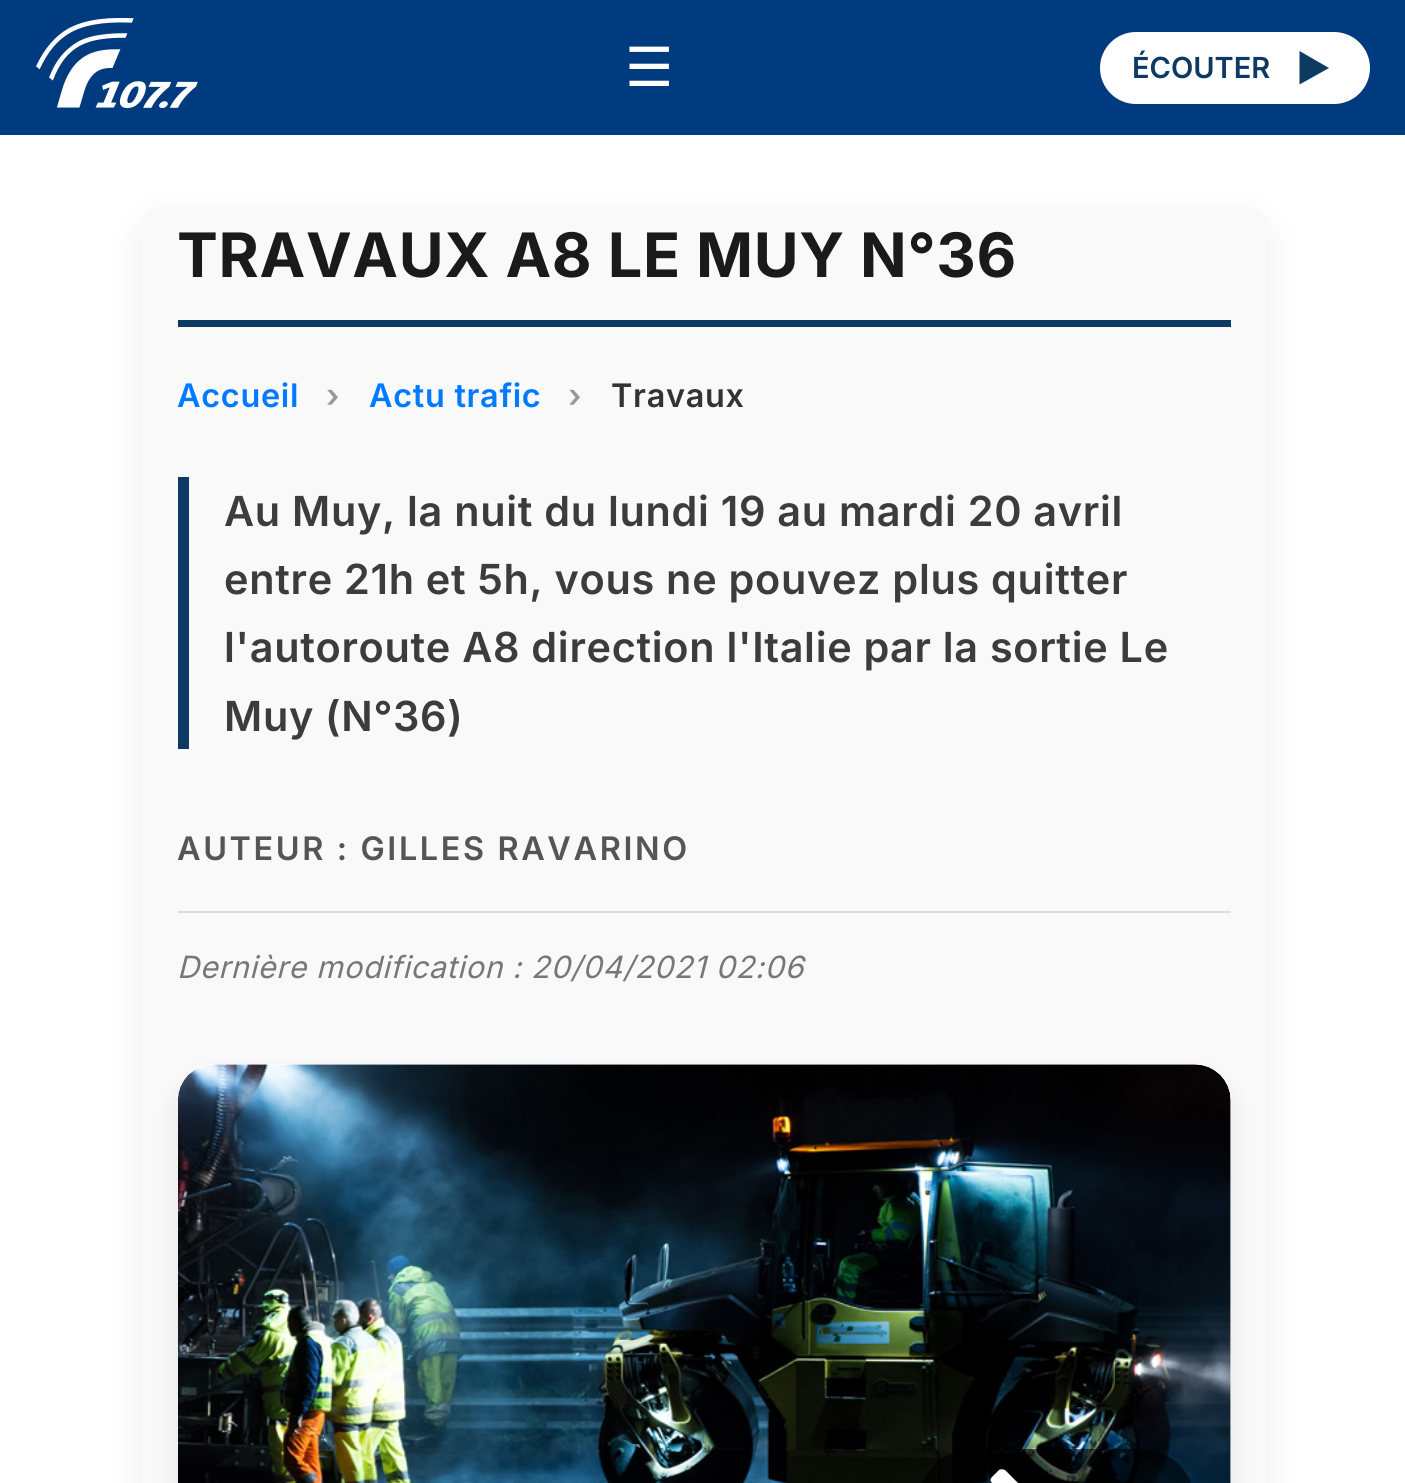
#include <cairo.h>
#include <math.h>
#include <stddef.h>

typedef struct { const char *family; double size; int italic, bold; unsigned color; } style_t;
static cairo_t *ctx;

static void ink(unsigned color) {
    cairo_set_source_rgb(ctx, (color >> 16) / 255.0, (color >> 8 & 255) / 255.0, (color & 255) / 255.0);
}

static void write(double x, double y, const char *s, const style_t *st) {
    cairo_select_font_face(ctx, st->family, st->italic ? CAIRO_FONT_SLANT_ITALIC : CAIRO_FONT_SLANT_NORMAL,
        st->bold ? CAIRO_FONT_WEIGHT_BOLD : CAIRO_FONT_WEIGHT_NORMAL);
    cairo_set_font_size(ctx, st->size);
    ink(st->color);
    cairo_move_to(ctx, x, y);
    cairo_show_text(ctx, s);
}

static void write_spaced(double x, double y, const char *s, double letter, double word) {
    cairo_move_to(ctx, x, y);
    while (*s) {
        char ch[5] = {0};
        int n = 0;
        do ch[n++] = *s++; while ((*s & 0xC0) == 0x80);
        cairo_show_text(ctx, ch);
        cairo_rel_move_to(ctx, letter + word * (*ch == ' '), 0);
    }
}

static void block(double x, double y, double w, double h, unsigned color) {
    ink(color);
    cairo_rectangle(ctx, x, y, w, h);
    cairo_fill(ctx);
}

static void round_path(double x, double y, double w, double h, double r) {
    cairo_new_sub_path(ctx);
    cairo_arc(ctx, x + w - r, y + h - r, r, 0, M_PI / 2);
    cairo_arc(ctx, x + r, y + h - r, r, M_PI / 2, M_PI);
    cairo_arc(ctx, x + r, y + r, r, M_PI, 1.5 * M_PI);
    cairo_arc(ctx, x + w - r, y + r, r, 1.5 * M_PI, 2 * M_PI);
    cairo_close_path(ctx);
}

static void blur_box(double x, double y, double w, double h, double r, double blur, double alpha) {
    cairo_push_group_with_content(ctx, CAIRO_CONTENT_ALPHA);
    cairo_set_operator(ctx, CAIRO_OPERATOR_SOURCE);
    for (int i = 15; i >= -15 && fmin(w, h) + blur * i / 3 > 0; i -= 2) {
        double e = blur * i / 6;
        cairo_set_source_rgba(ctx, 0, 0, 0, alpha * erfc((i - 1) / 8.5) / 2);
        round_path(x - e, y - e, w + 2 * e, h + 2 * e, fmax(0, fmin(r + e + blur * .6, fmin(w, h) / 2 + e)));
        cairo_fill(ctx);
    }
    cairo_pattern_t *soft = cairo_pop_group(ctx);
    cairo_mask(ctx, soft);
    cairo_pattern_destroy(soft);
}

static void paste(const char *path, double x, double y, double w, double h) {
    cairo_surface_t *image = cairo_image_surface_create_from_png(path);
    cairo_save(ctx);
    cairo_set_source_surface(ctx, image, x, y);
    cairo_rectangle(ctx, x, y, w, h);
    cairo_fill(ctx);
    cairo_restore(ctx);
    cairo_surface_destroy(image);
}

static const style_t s1 = {"DejaVu Sans", 54, 0, 0, 0xffffff};
static const style_t s2 = {"Inter SemiBold", 29, 0, 0, 0x0d3a63};

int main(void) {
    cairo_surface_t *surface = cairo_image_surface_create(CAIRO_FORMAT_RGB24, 1405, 1483);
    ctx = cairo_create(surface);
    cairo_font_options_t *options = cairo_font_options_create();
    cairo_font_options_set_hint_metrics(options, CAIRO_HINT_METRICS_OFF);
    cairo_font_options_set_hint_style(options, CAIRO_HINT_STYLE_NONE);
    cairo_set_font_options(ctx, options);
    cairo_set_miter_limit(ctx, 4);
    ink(0xffffff);
    cairo_paint(ctx);
    block(0, 0, 1405, 135, 0x003b80);
    paste("pic1.png", 36, 18, 162, 90);
    write(625, 86, "☰", &s1);
    round_path(1100, 32, 270, 72, 36);
    cairo_fill(ctx);
    write(1132, 78, "ÉCOUTER", &s2);
    cairo_new_path(ctx);
    cairo_move_to(ctx, 1299.5, 51);
    cairo_line_to(ctx, 1329, 68);
    cairo_line_to(ctx, 1299.5, 84.5);
    cairo_close_path(ctx);
    cairo_fill(ctx);
    ink(0x000000);
    blur_box(142, 221, 1125, 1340, 18, 20, 0.07);
    ink(0xf9f9f9);
    round_path(142, 207, 1125, 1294, 18);
    cairo_fill(ctx);
    block(178, 320, 1053, 7, 0x0d3a63);
    cairo_select_font_face(ctx, "Inter", CAIRO_FONT_SLANT_NORMAL, CAIRO_FONT_WEIGHT_BOLD);
    cairo_set_font_size(ctx, 61.25);
    ink(0x1a1a1a);
    write_spaced(177, 277, "TRAVAUX A8 LE MUY N°36", 0.7, 0);
    cairo_select_font_face(ctx, "Inter SemiBold", CAIRO_FONT_SLANT_NORMAL, CAIRO_FONT_WEIGHT_NORMAL);
    cairo_set_font_size(ctx, 32.4);
    ink(0x007bff);
    write_spaced(177, 407, "Accueil", 0.7, 0);
    ink(0x999999);
    write_spaced(326, 407, "›", 0.7, 0);
    ink(0x007bff);
    write_spaced(369, 407, "Actu trafic", 0.7, 0);
    ink(0x999999);
    write_spaced(568, 407, "›", 0.7, 0);
    ink(0x333333);
    write_spaced(611, 407, "Travaux", 0.7, 0);
    block(178, 477, 11, 272, 0x0d3a63);
    cairo_set_font_size(ctx, 41.4);
    ink(0x3c3c3c);
    write_spaced(224, 526, "Au Muy, la nuit du lundi 19 au mardi 20 avril", 0.7, 0);
    write_spaced(224, 594, "entre 21h et 5h, vous ne pouvez plus quitter", 0.7, 0);
    write_spaced(224, 662, "l'autoroute A8 direction l'Italie par la sortie Le", 0.7, 0);
    write_spaced(224, 731, "Muy (N°36)", 0.7, 0);
    cairo_set_font_size(ctx, 32.4);
    ink(0x555555);
    write_spaced(177, 860, "AUTEUR : GILLES RAVARINO", 2.6, 0);
    block(178, 911, 1053, 2, 0xdddddd);
    cairo_select_font_face(ctx, "Inter", CAIRO_FONT_SLANT_ITALIC, CAIRO_FONT_WEIGHT_NORMAL);
    cairo_set_font_size(ctx, 30.6);
    ink(0x777777);
    write_spaced(177, 978, "Dernière modification : 20/04/2021 02:06", 0.7, 0);
    ink(0x000000);
    blur_box(178, 1076, 1053, 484, 36, 13.5, 0.08);
    ink(0xffffff);
    round_path(178, 1064, 1053, 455, 36);
    cairo_fill(ctx);
    paste("pic2.png", 178, 1064, 1053, 419);
    cairo_set_source_rgba(ctx, 0, 0, 0, 0.6);
    round_path(918, 1449, 277, 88, 54);
    cairo_fill(ctx);
    ink(0xffffff);
    cairo_new_path(ctx);
    cairo_move_to(ctx, 992, 1477);
    cairo_line_to(ctx, 999, 1470);
    cairo_curve_to(ctx, 1000, 1469, 1003, 1469, 1005, 1470);
    cairo_line_to(ctx, 1037, 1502);
    cairo_curve_to(ctx, 1038, 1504, 1038, 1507, 1037, 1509);
    cairo_line_to(ctx, 1030, 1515);
    cairo_curve_to(ctx, 1029, 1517, 1026, 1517, 1024, 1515);
    cairo_line_to(ctx, 992, 1483);
    cairo_curve_to(ctx, 990, 1481, 990, 1479, 992, 1477);
    cairo_close_path(ctx);
    cairo_fill(ctx);
    cairo_set_source_rgba(ctx, 0, 0, 0, 0.4);
    round_path(1040, 1481, 132, 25, 22.5);
    cairo_fill(ctx);
    cairo_surface_write_to_png(surface, "screenshot.png");
    cairo_font_options_destroy(options);
    cairo_destroy(ctx);
    cairo_surface_destroy(surface);
    return 0;
}
